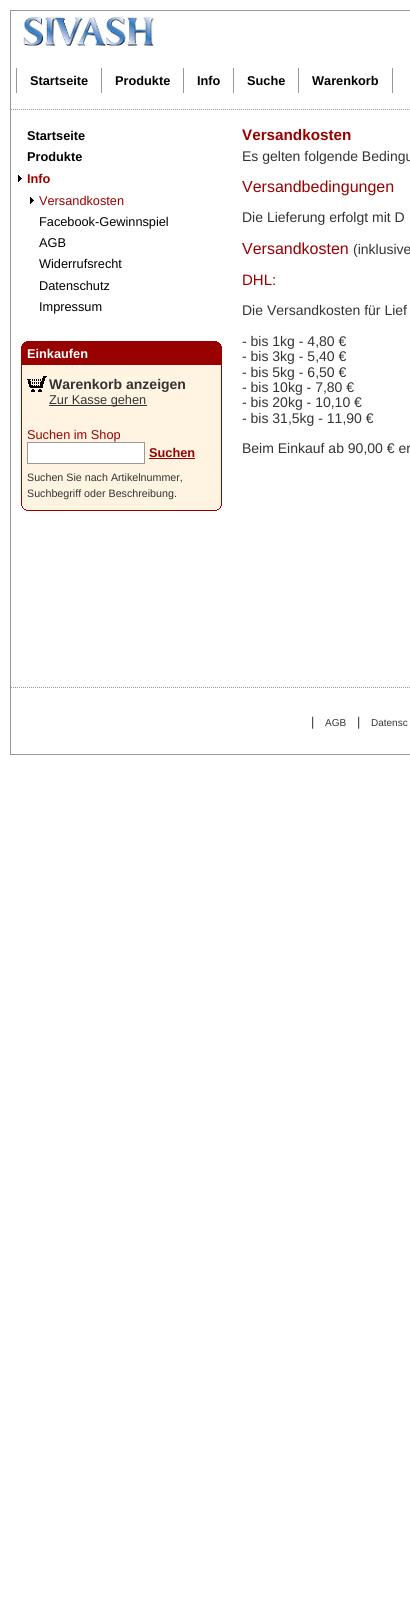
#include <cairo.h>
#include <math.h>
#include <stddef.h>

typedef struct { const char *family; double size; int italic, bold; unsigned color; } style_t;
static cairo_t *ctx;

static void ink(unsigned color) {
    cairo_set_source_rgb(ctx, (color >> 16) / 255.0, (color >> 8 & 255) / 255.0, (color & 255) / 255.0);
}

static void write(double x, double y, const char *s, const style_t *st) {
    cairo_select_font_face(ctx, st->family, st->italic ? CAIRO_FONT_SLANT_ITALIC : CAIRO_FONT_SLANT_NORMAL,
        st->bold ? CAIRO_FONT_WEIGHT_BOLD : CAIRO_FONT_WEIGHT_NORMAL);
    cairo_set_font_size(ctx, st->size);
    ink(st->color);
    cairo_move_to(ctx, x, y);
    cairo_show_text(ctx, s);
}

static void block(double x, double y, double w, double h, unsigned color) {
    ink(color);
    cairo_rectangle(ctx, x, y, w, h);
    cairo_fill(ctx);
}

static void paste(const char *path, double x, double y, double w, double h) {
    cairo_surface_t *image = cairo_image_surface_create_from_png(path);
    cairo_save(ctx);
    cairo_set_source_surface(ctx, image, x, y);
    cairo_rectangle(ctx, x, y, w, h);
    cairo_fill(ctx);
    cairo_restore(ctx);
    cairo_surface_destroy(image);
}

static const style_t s1 = {"Liberation Sans", 12.75, 0, 1, 0x000000};
static const style_t s2 = {"Liberation Sans", 12.75, 0, 1, 0x990000};
static const style_t s3 = {"Liberation Sans", 12.75, 0, 0, 0x990000};
static const style_t s4 = {"Liberation Sans", 12.75, 0, 0, 0x000000};
static const style_t s5 = {"Liberation Sans", 12.75, 0, 1, 0xffffff};
static const style_t s6 = {"Liberation Sans", 14, 0, 1, 0x333333};
static const style_t s7 = {"Liberation Sans", 12.75, 0, 0, 0x333333};
static const style_t s8 = {"Liberation Sans", 10.7, 0, 0, 0x333333};
static const style_t s9 = {"Liberation Sans", 15.25, 0, 1, 0x990000};
static const style_t s10 = {"Liberation Sans", 14, 0, 0, 0x333333};
static const style_t s11 = {"Liberation Sans", 16, 0, 0, 0x990000};
static const style_t s12 = {"Liberation Sans", 15, 0, 0, 0x990000};
static const style_t s13 = {"Liberation Sans", 10, 0, 0, 0x333333};

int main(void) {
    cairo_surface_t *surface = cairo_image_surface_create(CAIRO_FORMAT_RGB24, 410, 1597);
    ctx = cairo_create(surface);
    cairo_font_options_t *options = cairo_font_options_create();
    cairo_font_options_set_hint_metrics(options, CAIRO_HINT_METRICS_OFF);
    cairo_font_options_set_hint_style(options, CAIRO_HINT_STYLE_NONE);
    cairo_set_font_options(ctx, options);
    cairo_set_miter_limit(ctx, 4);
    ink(0xffffff);
    cairo_paint(ctx);
    cairo_rectangle(ctx, 10.5, 10.5, 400, 744);
    ink(0x999999);
    cairo_set_line_width(ctx, 1);
    cairo_stroke(ctx);
    cairo_new_path(ctx);
    cairo_move_to(ctx, 11, 109.5);
    cairo_line_to(ctx, 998, 109.5);
    cairo_set_dash(ctx, (double[]){1, 1}, 2, 0);
    cairo_stroke(ctx);
    paste("pic1.png", 23, 17, 131, 29);
    block(101, 68, 1, 25, 0x999999);
    block(16, 68, 1, 25, 0x999999);
    write(30, 85, "Startseite", &s1);
    block(183, 68, 1, 25, 0x999999);
    write(115, 85, "Produkte", &s1);
    block(233, 68, 1, 25, 0x999999);
    write(197, 85, "Info", &s1);
    block(298, 68, 1, 25, 0x999999);
    write(247, 85, "Suche", &s1);
    block(392, 68, 1, 25, 0x999999);
    write(312, 85, "Warenkorb", &s1);
    write(27, 140, "Startseite", &s1);
    write(27, 161, "Produkte", &s1);
    paste("pic2.png", 18, 175, 4, 7);
    write(27, 183, "Info", &s2);
    paste("pic2.png", 30, 197, 4, 7);
    write(39, 205, "Versandkosten", &s3);
    write(39, 226, "Facebook-Gewinnspiel", &s4);
    write(39, 247, "AGB", &s4);
    write(39, 268, "Widerrufsrecht", &s4);
    write(39, 290, "Datenschutz", &s4);
    write(39, 311, "Impressum", &s4);
    block(26, 341, 191, 1, 0x990000);
    block(24, 342, 195, 1, 0x990000);
    block(23, 343, 197, 1, 0x990000);
    block(22, 344, 199, 2, 0x990000);
    block(21, 346, 201, 19, 0x990000);
    write(27, 358, "Einkaufen", &s5);
    block(22, 365, 199, 143, 0xfff3e2);
    block(221, 364, 1, 142, 0x990000);
    block(21, 364, 1, 142, 0x990000);
    paste("pic3.png", 27, 376, 20, 16);
    write(49, 389, "Warenkorb anzeigen", &s6);
    block(49, 405, 98, 1, 0x333333);
    write(49, 404, "Zur Kasse gehen", &s7);
    write(27, 439, "Suchen im Shop", &s3);
    ink(0xffffff);
    cairo_rectangle(ctx, 27.5, 442.5, 117, 21);
    cairo_fill_preserve(ctx);
    ink(0x999999);
    cairo_set_dash(ctx, NULL, 0, 0);
    cairo_stroke(ctx);
    write(149, 457, "Suchen", &s2);
    block(149, 458, 46, 1, 0x990000);
    write(27, 481, "Suchen Sie nach Artikelnummer,", &s8);
    write(27, 497, "Suchbegriff oder Beschreibung.", &s8);
    block(220, 506, 1, 2, 0x990000);
    block(22, 506, 1, 2, 0x990000);
    block(23, 508, 197, 1, 0xfff3e2);
    block(219, 508, 1, 1, 0x990000);
    block(23, 508, 1, 1, 0x990000);
    block(24, 509, 195, 1, 0xfff3e2);
    block(217, 509, 2, 1, 0x990000);
    block(24, 509, 2, 1, 0x990000);
    block(26, 510, 191, 1, 0x990000);
    write(242, 140, "Versandkosten", &s9);
    write(242, 161, "Es gelten folgende Bedingu", &s10);
    write(242, 192, "Versandbedingungen", &s11);
    write(242, 222, "Die Lieferung erfolgt mit D", &s10);
    write(242, 254, "Versandkosten", &s11);
    write(353, 254, "(inklusive", &s10);
    write(242, 285, "DHL:", &s12);
    write(242, 315, "Die Versandkosten für Lief", &s10);
    write(242, 346, "- bis 1kg - 4,80 €", &s10);
    write(242, 361, "- bis 3kg - 5,40 €", &s10);
    write(242, 377, "- bis 5kg - 6,50 €", &s10);
    write(242, 392, "- bis 10kg - 7,80 €", &s10);
    write(242, 407, "- bis 20kg - 10,10 €", &s10);
    write(242, 423, "- bis 31,5kg - 11,90 €", &s10);
    write(242, 453, "Beim Einkauf ab 90,00 € er", &s10);
    cairo_new_path(ctx);
    cairo_move_to(ctx, 11, 687.5);
    cairo_line_to(ctx, 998, 687.5);
    ink(0x999999);
    cairo_set_dash(ctx, (double[]){1, 1}, 2, 0);
    cairo_stroke(ctx);
    write(311, 726, "|", &s7);
    write(325, 726, "AGB", &s13);
    write(357, 726, "|", &s7);
    write(371, 726, "Datensc", &s13);
    cairo_surface_write_to_png(surface, "screenshot.png");
    cairo_font_options_destroy(options);
    cairo_destroy(ctx);
    cairo_surface_destroy(surface);
    return 0;
}
